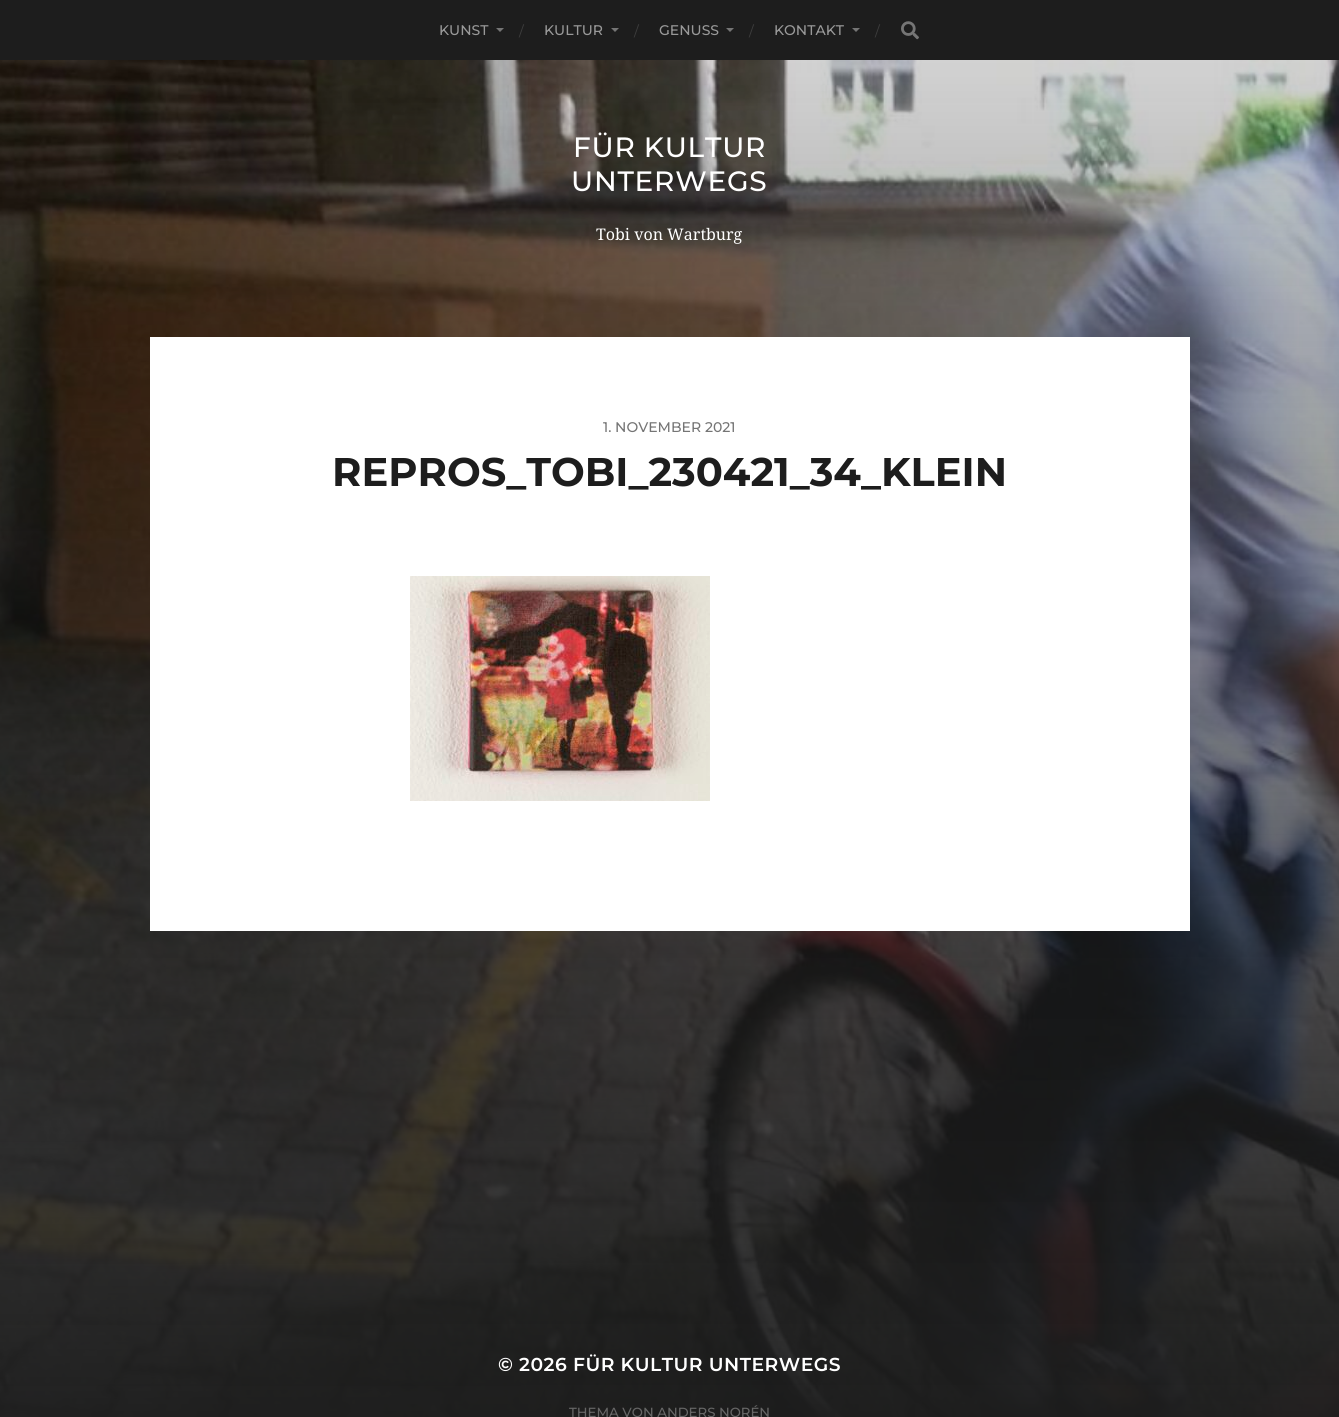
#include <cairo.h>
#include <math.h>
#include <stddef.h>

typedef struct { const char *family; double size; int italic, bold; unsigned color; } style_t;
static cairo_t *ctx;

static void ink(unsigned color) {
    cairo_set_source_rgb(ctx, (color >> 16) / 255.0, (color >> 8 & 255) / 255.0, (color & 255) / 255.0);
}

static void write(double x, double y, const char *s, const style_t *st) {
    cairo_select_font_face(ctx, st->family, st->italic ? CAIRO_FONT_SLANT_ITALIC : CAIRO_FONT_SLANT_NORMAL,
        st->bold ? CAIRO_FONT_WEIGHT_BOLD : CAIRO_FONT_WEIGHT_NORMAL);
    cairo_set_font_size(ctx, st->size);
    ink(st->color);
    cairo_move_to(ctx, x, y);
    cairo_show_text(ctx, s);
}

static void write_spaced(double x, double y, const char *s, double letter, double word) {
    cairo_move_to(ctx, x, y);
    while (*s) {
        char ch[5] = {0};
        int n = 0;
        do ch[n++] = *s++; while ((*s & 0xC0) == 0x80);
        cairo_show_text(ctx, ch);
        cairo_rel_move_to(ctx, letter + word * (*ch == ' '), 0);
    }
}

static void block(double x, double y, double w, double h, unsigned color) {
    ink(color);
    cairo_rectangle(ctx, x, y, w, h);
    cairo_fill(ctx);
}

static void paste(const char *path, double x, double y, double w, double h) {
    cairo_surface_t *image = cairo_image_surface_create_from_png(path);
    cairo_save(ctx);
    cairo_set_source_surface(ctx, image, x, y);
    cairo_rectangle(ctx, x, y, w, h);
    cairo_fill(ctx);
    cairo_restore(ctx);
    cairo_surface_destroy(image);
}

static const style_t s1 = {"Montserrat Thin", 14, 0, 0, 0x999999};
static const style_t s2 = {"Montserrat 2 Thin", 14, 0, 0, 0x3d3d3d};
static const style_t s3 = {"Droid Serif", 16, 0, 0, 0xffffff};
static const style_t s4 = {"Montserrat Thin", 14, 0, 0, 0x757575};
static const style_t s5 = {"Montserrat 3 Thin", 40, 0, 0, 0x1d1d1d};
static const style_t s6 = {"Montserrat Thin", 13.25, 0, 0, 0x666666};

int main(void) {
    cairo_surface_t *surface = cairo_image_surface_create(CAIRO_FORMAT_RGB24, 1339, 1417);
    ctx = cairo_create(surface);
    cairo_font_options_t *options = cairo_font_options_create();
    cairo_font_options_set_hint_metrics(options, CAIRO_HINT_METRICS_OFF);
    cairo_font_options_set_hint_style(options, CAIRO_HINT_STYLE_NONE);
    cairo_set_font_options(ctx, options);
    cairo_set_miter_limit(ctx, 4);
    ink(0x1d1d1d);
    cairo_paint(ctx);
    write(439, 35, "KUNST", &s1);
    ink(0x757575);
    cairo_new_path(ctx);
    cairo_move_to(ctx, 496, 28);
    cairo_line_to(ctx, 504, 28);
    cairo_line_to(ctx, 500, 32);
    cairo_close_path(ctx);
    cairo_fill(ctx);
    write(519, 36, "/", &s2);
    write(544, 35, "KULTUR", &s1);
    ink(0x757575);
    cairo_new_path(ctx);
    cairo_move_to(ctx, 611, 28);
    cairo_line_to(ctx, 619, 28);
    cairo_line_to(ctx, 615, 32);
    cairo_close_path(ctx);
    cairo_fill(ctx);
    write(634, 36, "/", &s2);
    write(659, 35, "GENUSS", &s1);
    ink(0x757575);
    cairo_new_path(ctx);
    cairo_move_to(ctx, 726, 28);
    cairo_line_to(ctx, 734, 28);
    cairo_line_to(ctx, 730, 32);
    cairo_close_path(ctx);
    cairo_fill(ctx);
    write(749, 36, "/", &s2);
    write(774, 35, "KONTAKT", &s1);
    ink(0x757575);
    cairo_new_path(ctx);
    cairo_move_to(ctx, 852, 28);
    cairo_line_to(ctx, 860, 28);
    cairo_line_to(ctx, 856, 32);
    cairo_close_path(ctx);
    cairo_fill(ctx);
    write(875, 36, "/", &s2);
    paste("pic1.png", 901, 21, 18, 19);
    paste("pic2.png", 0, 60, 1339, 1357);
    cairo_select_font_face(ctx, "Montserrat Thin", CAIRO_FONT_SLANT_NORMAL, CAIRO_FONT_WEIGHT_NORMAL);
    cairo_set_font_size(ctx, 28);
    ink(0xffffff);
    write_spaced(573, 157, "FÜR KULTUR", 0.75, 0);
    write_spaced(571, 191, "UNTERWEGS", 0.75, 0);
    write(596, 240, "Tobi von Wartburg", &s3);
    block(150, 337, 1040, 594, 0xffffff);
    write(603, 432, "1. NOVEMBER 2021", &s4);
    write(332, 486, "REPROS_TOBI_230421_34_KLEIN", &s5);
    paste("pic3.png", 410, 576, 300, 225);
    cairo_select_font_face(ctx, "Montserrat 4 Thin", CAIRO_FONT_SLANT_NORMAL, CAIRO_FONT_WEIGHT_NORMAL);
    cairo_set_font_size(ctx, 18.75);
    ink(0xffffff);
    write_spaced(498, 1371, "© 2026 FÜR KULTUR UNTERWEGS", 0.5, 0);
    write(569, 1417, "THEMA VON ANDERS NORÉN", &s6);
    cairo_surface_write_to_png(surface, "screenshot.png");
    cairo_font_options_destroy(options);
    cairo_destroy(ctx);
    cairo_surface_destroy(surface);
    return 0;
}
